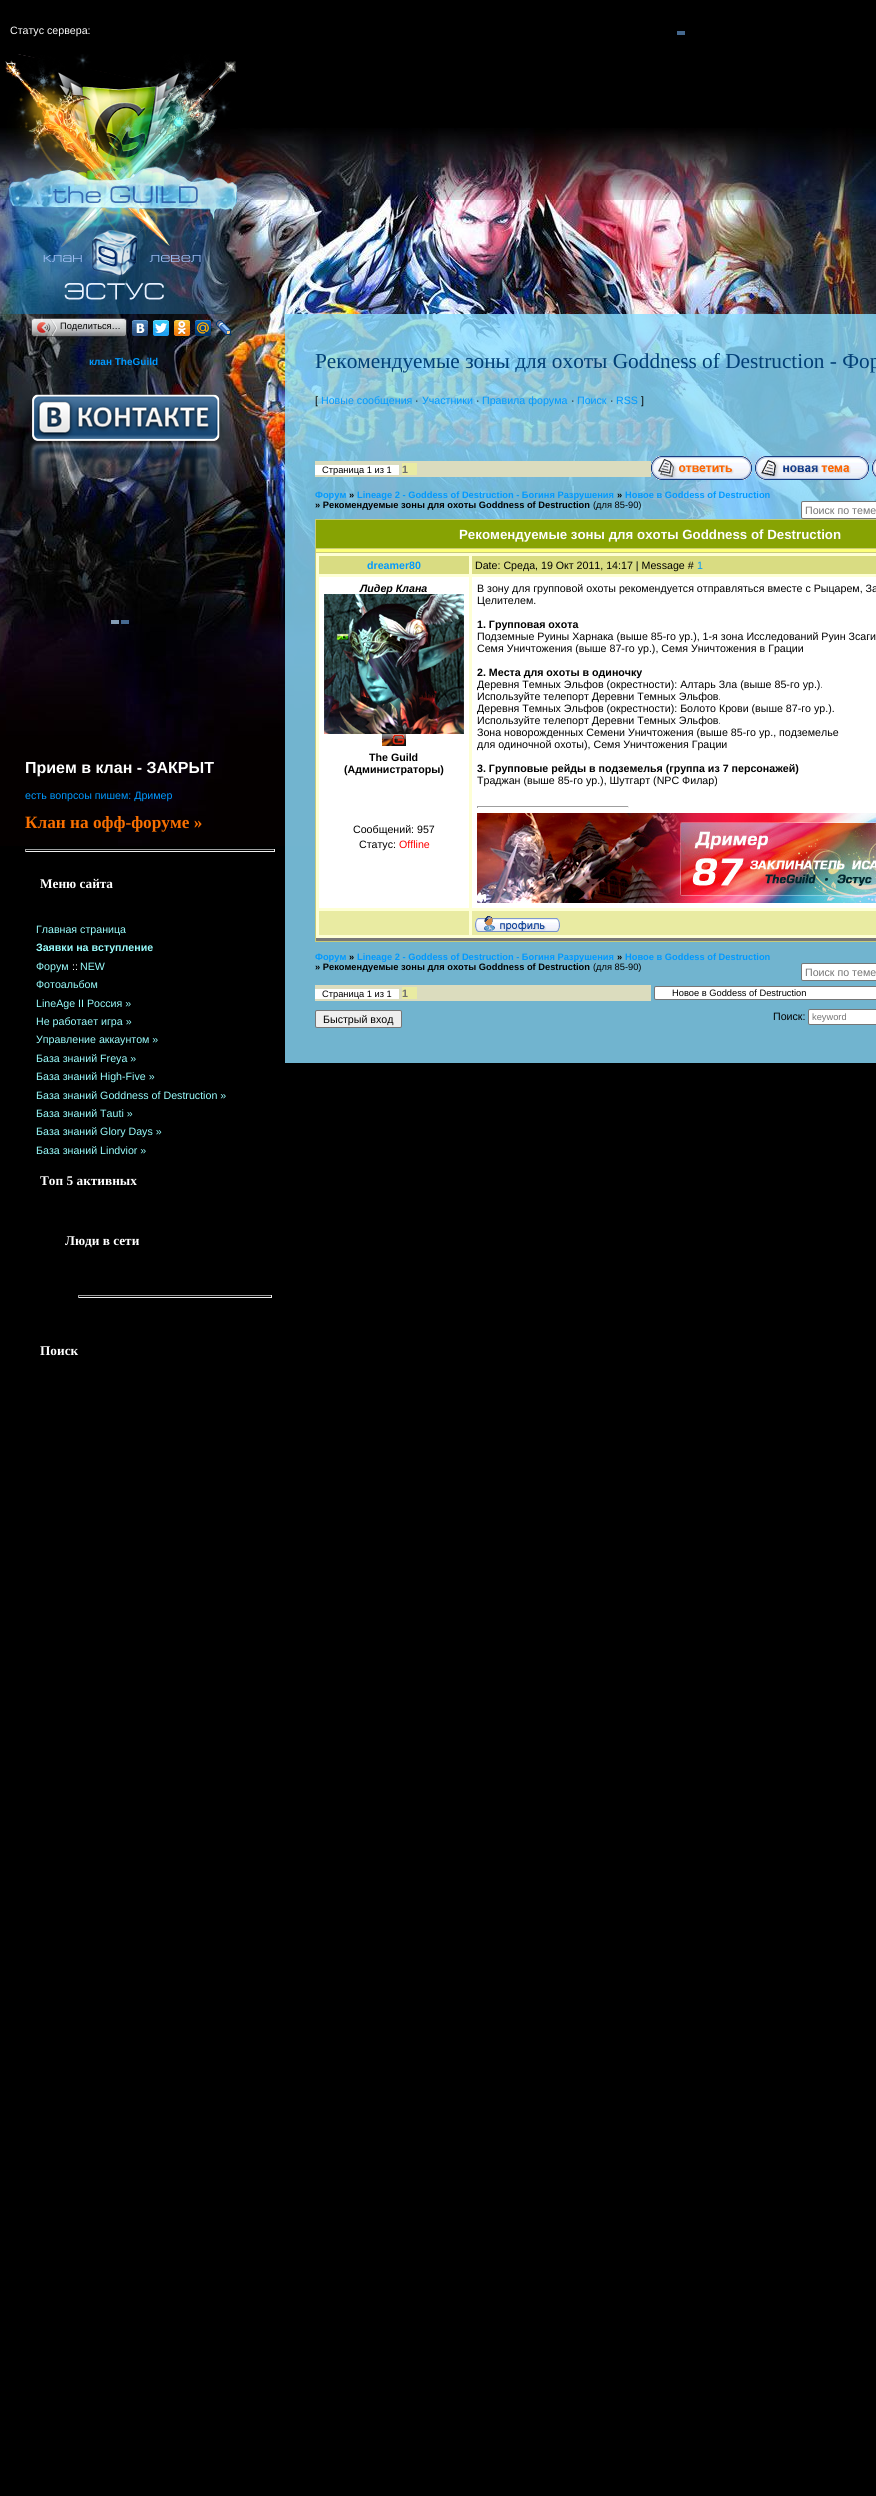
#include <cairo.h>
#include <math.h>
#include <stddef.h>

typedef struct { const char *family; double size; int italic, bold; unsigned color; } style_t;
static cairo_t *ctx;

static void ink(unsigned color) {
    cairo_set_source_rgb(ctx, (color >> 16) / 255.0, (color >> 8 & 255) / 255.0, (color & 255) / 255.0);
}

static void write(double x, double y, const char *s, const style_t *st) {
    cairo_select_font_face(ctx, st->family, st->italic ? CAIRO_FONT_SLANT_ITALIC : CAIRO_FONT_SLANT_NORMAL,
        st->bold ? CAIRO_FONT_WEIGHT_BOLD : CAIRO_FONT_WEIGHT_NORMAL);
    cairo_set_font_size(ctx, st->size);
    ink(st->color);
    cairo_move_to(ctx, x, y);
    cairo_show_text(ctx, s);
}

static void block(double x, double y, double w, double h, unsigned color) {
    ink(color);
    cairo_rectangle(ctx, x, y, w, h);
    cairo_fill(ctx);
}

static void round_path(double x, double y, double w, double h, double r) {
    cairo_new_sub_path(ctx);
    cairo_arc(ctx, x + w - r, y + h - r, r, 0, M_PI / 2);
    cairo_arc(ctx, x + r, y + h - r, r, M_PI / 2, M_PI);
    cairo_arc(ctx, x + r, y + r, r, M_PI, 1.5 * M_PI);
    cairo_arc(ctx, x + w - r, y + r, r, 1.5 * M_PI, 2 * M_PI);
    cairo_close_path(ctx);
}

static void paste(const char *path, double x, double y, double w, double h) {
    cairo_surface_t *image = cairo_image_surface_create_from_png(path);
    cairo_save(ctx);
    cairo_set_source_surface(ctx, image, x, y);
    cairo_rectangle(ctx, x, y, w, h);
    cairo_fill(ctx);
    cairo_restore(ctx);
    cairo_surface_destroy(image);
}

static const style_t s1 = {"Liberation Sans", 10.65, 0, 0, 0xffffff};
static const style_t s2 = {"Liberation Sans", 9.25, 0, 0, 0x000000};
static const style_t s3 = {"Liberation Sans", 10, 0, 1, 0x0099ff};
static const style_t s4 = {"Liberation Sans", 16, 0, 1, 0xffffff};
static const style_t s5 = {"Liberation Sans", 10.65, 0, 0, 0x0099ff};
static const style_t s6 = {"Liberation Serif", 17.25, 0, 1, 0xf86f00};
static const style_t s7 = {"Liberation Serif", 13.3, 0, 1, 0xffffff};
static const style_t s8 = {"Liberation Sans", 10.65, 0, 0, 0x99ffff};
static const style_t s9 = {"Liberation Sans", 10.65, 0, 1, 0x99ffff};
static const style_t s10 = {"Liberation Serif", 21.3, 0, 0, 0x013f76};
static const style_t s11 = {"Liberation Sans", 10.65, 0, 0, 0x000000};
static const style_t s12 = {"Liberation Sans", 9.3, 0, 0, 0x000000};
static const style_t s13 = {"Liberation Sans", 10.65, 0, 1, 0x6e6e6e};
static const style_t s14 = {"Liberation Sans", 9.3, 0, 1, 0x0099ff};
static const style_t s15 = {"Liberation Sans", 9.3, 0, 1, 0x000000};
static const style_t s16 = {"Liberation Sans", 10.65, 0, 0, 0x757575};
static const style_t s17 = {"Liberation Sans", 13.3, 0, 1, 0xffffff};
static const style_t s18 = {"Liberation Sans", 10.65, 0, 1, 0x0099ff};
static const style_t s19 = {"Liberation Sans", 10.65, 1, 1, 0x000000};
static const style_t s20 = {"Liberation Sans", 10.65, 0, 1, 0x000000};
static const style_t s21 = {"Liberation Sans", 10.65, 0, 0, 0xff0000};
static const style_t s22 = {"Liberation Sans", 9.3, 0, 0, 0x757575};

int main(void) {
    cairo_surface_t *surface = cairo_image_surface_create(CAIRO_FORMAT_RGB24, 876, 2496);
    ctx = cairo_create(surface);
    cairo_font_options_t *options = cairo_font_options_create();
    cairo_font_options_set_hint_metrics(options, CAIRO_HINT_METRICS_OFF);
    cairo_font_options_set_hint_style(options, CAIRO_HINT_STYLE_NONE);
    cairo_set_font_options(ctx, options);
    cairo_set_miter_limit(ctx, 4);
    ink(0x000000);
    cairo_paint(ctx);
    paste("pic1.png", 0, 128, 876, 718);
    write(10, 34, "Статус сервера:", &s1);
    block(677, 31, 8, 4, 0x45688e);
    paste("pic2.png", 0, 54, 242, 260);
    paste("pic3.png", 34, 318, 90, 19);
    paste("pic4.png", 31, 318, 3, 19);
    paste("pic5.png", 37, 319, 20, 17);
    write(60, 329, "Поделиться…", &s2);
    paste("pic6.png", 124, 318, 3, 19);
    paste("pic7.png", 132, 320, 16, 16);
    paste("pic8.png", 153, 320, 16, 16);
    paste("pic9.png", 174, 320, 16, 16);
    paste("pic10.png", 195, 320, 16, 16);
    paste("pic11.png", 216, 320, 16, 16);
    write(89, 365, "клан TheGuild", &s3);
    paste("pic12.png", 29, 394, 193, 96);
    paste("pic13.png", 111, 620, 18, 4);
    write(25, 773, "Прием в клан - ЗАКРЫТ", &s4);
    write(25, 799, "есть вопрсоы пишем: Дример", &s5);
    write(25, 828, "Клан на офф-форуме »", &s6);
    block(25, 849, 250, 1, 0x9f9f9f);
    block(274, 849, 1, 3, 0xeeeeee);
    block(25, 851, 250, 1, 0xeeeeee);
    block(25, 849, 1, 3, 0x9f9f9f);
    write(40, 888, "Меню сайта", &s7);
    write(36, 933, "Главная страница", &s8);
    write(36, 951, "Заявки на вступление", &s9);
    write(36, 970, "Форум", &s8);
    write(72, 970, "::", &s1);
    write(80, 970, "NEW", &s8);
    write(36, 988, "Фотоальбом", &s8);
    write(36, 1007, "LineAge II Россия »", &s8);
    write(36, 1025, "Не работает игра »", &s8);
    write(36, 1043, "Управление аккаунтом »", &s8);
    write(36, 1062, "База знаний Freya »", &s8);
    write(36, 1080, "База знаний High-Five »", &s8);
    write(36, 1099, "База знаний Goddness of Destruction »", &s8);
    write(36, 1117, "База знаний Tauti »", &s8);
    write(36, 1135, "База знаний Glory Days »", &s8);
    write(36, 1154, "База знаний Lindvior »", &s8);
    write(40, 1185, "Топ 5 активных", &s7);
    write(65, 1245, "Люди в сети", &s7);
    block(78, 1295, 194, 1, 0x9f9f9f);
    block(271, 1295, 1, 3, 0xeeeeee);
    block(78, 1297, 194, 1, 0xeeeeee);
    block(78, 1295, 1, 3, 0x9f9f9f);
    write(40, 1355, "Поиск", &s7);
    cairo_set_source_rgba(ctx, 0.549, 0.871, 1, 0.81);
    cairo_rectangle(ctx, 285, 314, 591, 749);
    cairo_fill(ctx);
    write(315, 368, "Рекомендуемые зоны для охоты Goddness of Destruction - Фор", &s10);
    write(315, 404, "[", &s11);
    write(321, 404, "Новые сообщения", &s5);
    write(415, 404, "·", &s11);
    write(422, 404, "Участники", &s5);
    write(476, 404, "·", &s11);
    write(482, 404, "Правила форума", &s5);
    write(571, 404, "·", &s11);
    write(577, 404, "Поиск", &s5);
    write(610, 404, "·", &s11);
    write(616, 404, "RSS", &s5);
    write(641, 404, "]", &s11);
    block(315, 461, 336, 16, 0xdbdcbe);
    block(315, 465, 84, 10, 0xffffff);
    write(322, 473, "Страница 1 из 1", &s12);
    block(402, 463, 15, 12, 0xe9eba2);
    write(402, 473, "1", &s13);
    paste("pic14.png", 651, 456, 101, 24);
    paste("pic15.png", 755, 456, 114, 24);
    paste("pic16.png", 872, 459, 4, 18);
    write(315, 498, "Форум", &s14);
    write(349, 498, "»", &s15);
    write(357, 498, "Lineage 2 - Goddess of Destruction - Богиня Разрушения", &s14);
    write(617, 498, "»", &s15);
    write(625, 498, "Новое в Goddess of Destruction", &s14);
    write(315, 508, "» Рекомендуемые зоны для охоты Goddness of Destruction", &s15);
    write(593, 508, "(для 85-90)", &s12);
    ink(0xffffff);
    round_path(801.5, 501.5, 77, 17, 1.5);
    cairo_fill_preserve(ctx);
    ink(0x767676);
    cairo_set_line_width(ctx, 1);
    cairo_stroke(ctx);
    write(805, 514, "Поиск по теме", &s16);
    block(315, 519, 561, 423, 0xc8cb78);
    block(316, 520, 560, 28, 0x87a303);
    write(459, 539, "Рекомендуемые зоны для охоты Goddness of Destruction", &s17);
    block(316, 549, 560, 3, 0xfcff7c);
    block(316, 553, 560, 385, 0xfeffd5);
    block(316, 938, 560, 3, 0x787878);
    block(319, 556, 150, 18, 0xd9dc82);
    write(367, 569, "dreamer80", &s18);
    block(472, 556, 404, 18, 0xd9dc82);
    write(475, 569, "Date: Среда, 19 Окт 2011, 14:17 | Message #", &s11);
    write(697, 569, "1", &s5);
    block(319, 577, 150, 331, 0xffffff);
    write(360, 592, "Лидер Клана", &s19);
    paste("pic17.png", 324, 594, 140, 140);
    paste("pic18.png", 382, 734, 24, 12);
    write(369, 761, "The Guild", &s20);
    write(344, 773, "(Администраторы)", &s20);
    write(353, 833, "Сообщений: 957", &s11);
    write(359, 848, "Статус:", &s11);
    write(399, 848, "Offline", &s21);
    block(472, 577, 404, 331, 0xffffff);
    write(477, 592, "В зону для групповой охоты рекомендуется отправляться вместе с Рыцарем, За", &s11);
    write(477, 604, "Целителем.", &s11);
    write(477, 628, "1. Групповая охота", &s20);
    write(477, 640, "Подземные Руины Харнака (выше 85-го ур.), 1-я зона Исследований Руин Зсаги", &s11);
    write(477, 652, "Семя Уничтожения (выше 87-го ур.), Семя Уничтожения в Грации", &s11);
    write(477, 676, "2. Места для охоты в одиночку", &s20);
    write(477, 688, "Деревня Темных Эльфов (окрестности): Алтарь Зла (выше 85-го ур.).", &s11);
    write(477, 700, "Используйте телепорт Деревни Темных Эльфов.", &s11);
    write(477, 712, "Деревня Темных Эльфов (окрестности): Болото Крови (выше 87-го ур.).", &s11);
    write(477, 724, "Используйте телепорт Деревни Темных Эльфов.", &s11);
    write(477, 736, "Зона новорожденных Семени Уничтожения (выше 85-го ур., подземелье", &s11);
    write(477, 748, "для одиночной охоты), Семя Уничтожения Грации", &s11);
    write(477, 772, "3. Групповые рейды в подземелья (группа из 7 персонажей)", &s20);
    write(477, 784, "Траджан (выше 85-го ур.), Шутгарт (NPC Филар)", &s11);
    block(477, 806, 152, 1, 0x9f9f9f);
    block(628, 806, 1, 2, 0xeeeeee);
    block(477, 806, 1, 2, 0x9f9f9f);
    paste("pic19.png", 477, 813, 399, 90);
    block(319, 911, 150, 24, 0xe9eba2);
    block(472, 911, 404, 24, 0xe9eba2);
    paste("pic20.png", 475, 916, 85, 16);
    write(315, 960, "Форум", &s14);
    write(349, 960, "»", &s15);
    write(357, 960, "Lineage 2 - Goddess of Destruction - Богиня Разрушения", &s14);
    write(617, 960, "»", &s15);
    write(625, 960, "Новое в Goddess of Destruction", &s14);
    write(315, 970, "» Рекомендуемые зоны для охоты Goddness of Destruction", &s15);
    write(593, 970, "(для 85-90)", &s12);
    ink(0xffffff);
    round_path(801.5, 963.5, 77, 17, 1.5);
    cairo_fill_preserve(ctx);
    ink(0x767676);
    cairo_stroke(ctx);
    write(805, 976, "Поиск по теме", &s16);
    block(315, 985, 336, 16, 0xdbdcbe);
    block(315, 989, 84, 10, 0xffffff);
    write(322, 997, "Страница 1 из 1", &s12);
    block(402, 987, 15, 12, 0xe9eba2);
    write(402, 997, "1", &s13);
    ink(0xffffff);
    round_path(654.5, 986.5, 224, 13, 1.5);
    cairo_fill_preserve(ctx);
    ink(0x767676);
    cairo_stroke(ctx);
    write(672, 996, "Новое в Goddess of Destruction", &s12);
    ink(0xefefef);
    round_path(315.5, 1010.5, 86, 17, 1.5);
    cairo_fill_preserve(ctx);
    ink(0x767676);
    cairo_stroke(ctx);
    write(323, 1023, "Быстрый вход", &s11);
    write(773, 1020, "Поиск:", &s11);
    ink(0xffffff);
    round_path(808.5, 1009.5, 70, 15, 1.5);
    cairo_fill_preserve(ctx);
    ink(0x767676);
    cairo_stroke(ctx);
    write(812, 1020, "keyword", &s22);
    cairo_surface_write_to_png(surface, "screenshot.png");
    cairo_font_options_destroy(options);
    cairo_destroy(ctx);
    cairo_surface_destroy(surface);
    return 0;
}
